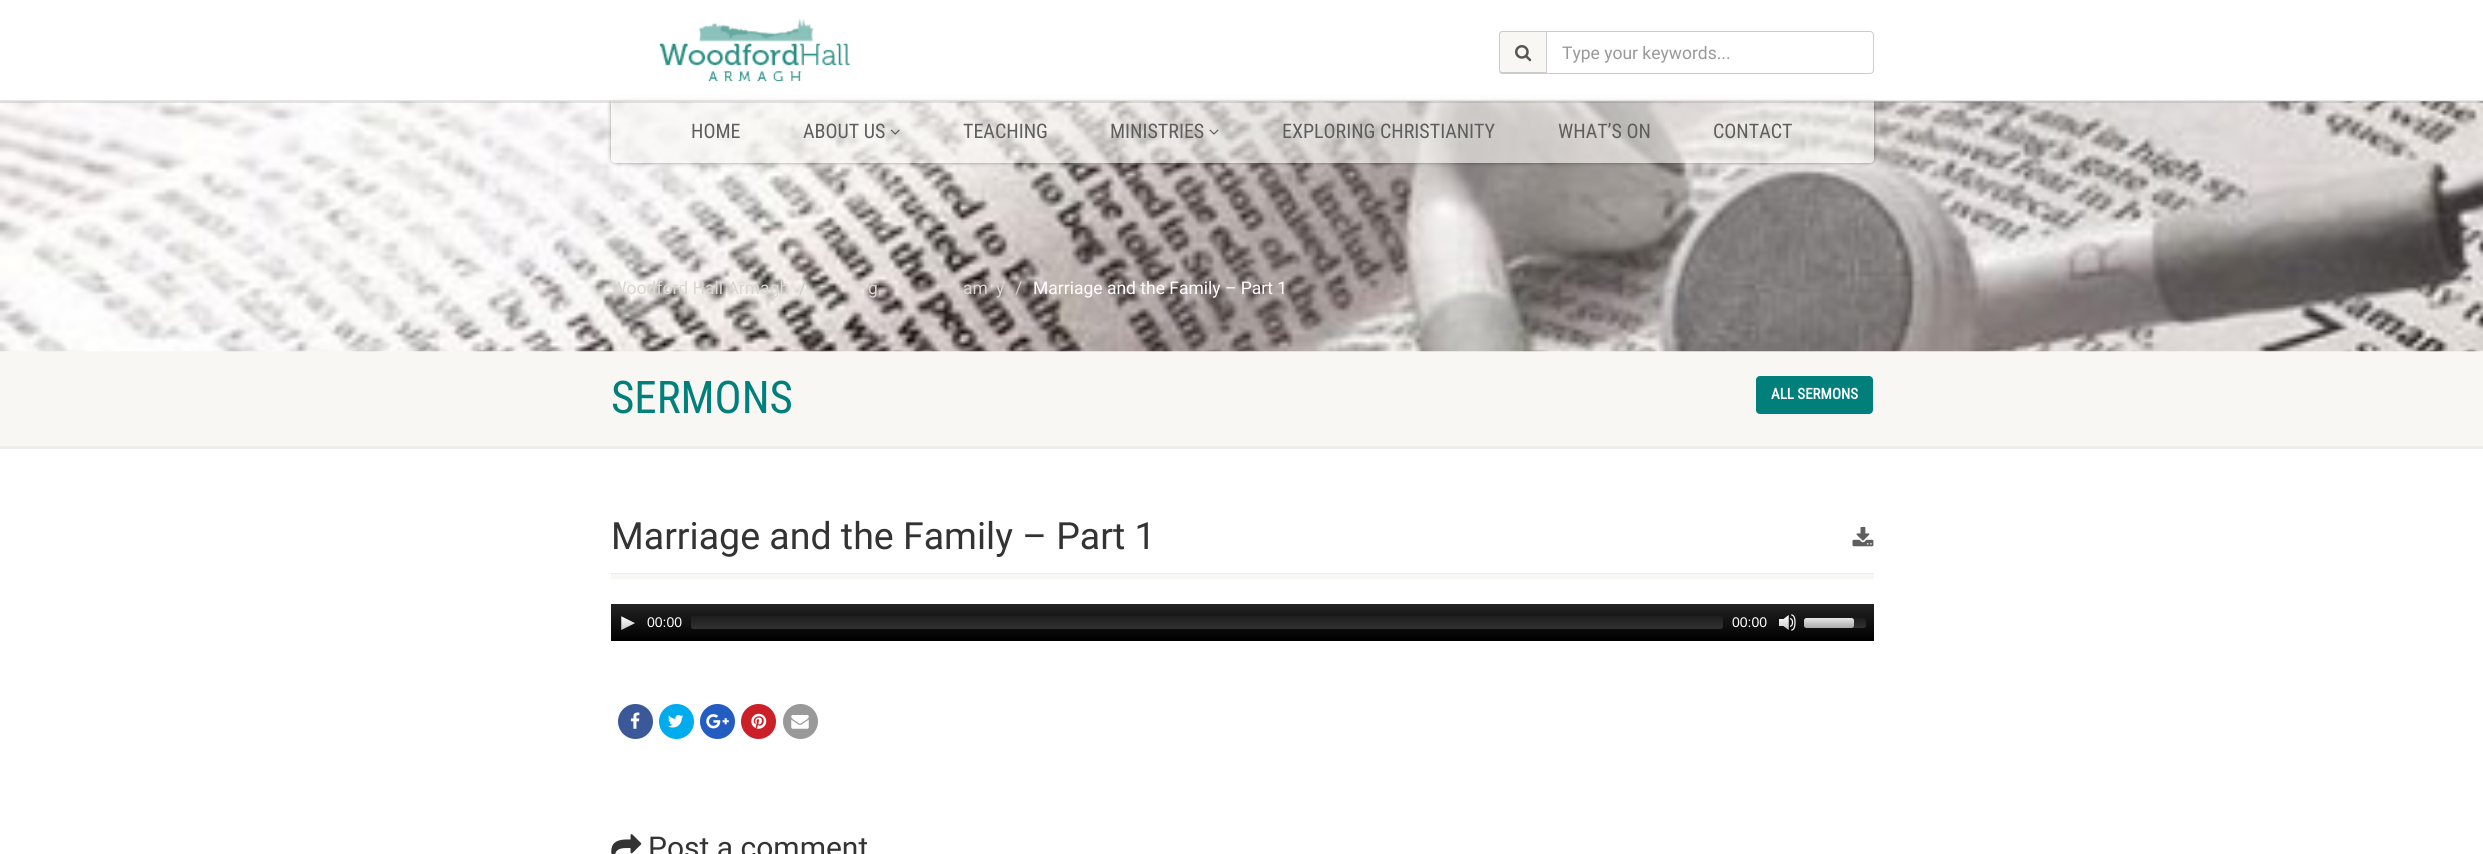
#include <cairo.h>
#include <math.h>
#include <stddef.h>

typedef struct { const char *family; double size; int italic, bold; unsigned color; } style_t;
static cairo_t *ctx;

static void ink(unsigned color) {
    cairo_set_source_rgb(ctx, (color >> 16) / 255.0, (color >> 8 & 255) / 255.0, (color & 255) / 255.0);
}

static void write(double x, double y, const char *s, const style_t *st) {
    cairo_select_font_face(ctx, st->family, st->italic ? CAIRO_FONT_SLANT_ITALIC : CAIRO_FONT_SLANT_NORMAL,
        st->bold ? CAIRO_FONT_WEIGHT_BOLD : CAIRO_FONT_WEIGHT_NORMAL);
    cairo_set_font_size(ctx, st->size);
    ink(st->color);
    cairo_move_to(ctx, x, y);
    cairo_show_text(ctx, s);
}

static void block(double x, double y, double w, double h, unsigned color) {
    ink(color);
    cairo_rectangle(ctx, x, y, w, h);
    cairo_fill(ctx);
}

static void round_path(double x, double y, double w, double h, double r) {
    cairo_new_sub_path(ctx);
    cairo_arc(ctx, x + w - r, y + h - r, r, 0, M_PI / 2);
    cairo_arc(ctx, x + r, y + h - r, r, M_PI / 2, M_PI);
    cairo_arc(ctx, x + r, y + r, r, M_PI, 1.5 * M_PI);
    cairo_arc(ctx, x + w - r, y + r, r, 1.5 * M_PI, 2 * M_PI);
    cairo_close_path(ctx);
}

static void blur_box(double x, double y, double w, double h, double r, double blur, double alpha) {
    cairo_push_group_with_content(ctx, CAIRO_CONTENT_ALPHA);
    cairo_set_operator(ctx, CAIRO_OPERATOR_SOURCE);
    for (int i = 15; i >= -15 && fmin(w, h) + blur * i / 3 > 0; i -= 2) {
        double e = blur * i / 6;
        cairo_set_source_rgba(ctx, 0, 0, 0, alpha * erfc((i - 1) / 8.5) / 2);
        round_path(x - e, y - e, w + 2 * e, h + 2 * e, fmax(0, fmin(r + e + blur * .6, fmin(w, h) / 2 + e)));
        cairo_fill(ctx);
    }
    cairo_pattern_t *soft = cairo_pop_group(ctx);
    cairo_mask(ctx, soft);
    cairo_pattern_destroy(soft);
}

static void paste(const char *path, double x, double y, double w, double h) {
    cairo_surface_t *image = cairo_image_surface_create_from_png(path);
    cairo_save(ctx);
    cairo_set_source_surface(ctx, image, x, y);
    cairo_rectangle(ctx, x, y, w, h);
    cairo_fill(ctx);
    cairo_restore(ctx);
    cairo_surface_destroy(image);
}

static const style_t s1 = {"Roboto", 17.5, 0, 0, 0x999999};
static const style_t s2 = {"Roboto Condensed", 20, 0, 0, 0x5e5e5e};
static const style_t s3 = {"Roboto", 17.5, 0, 0, 0xd8d6d1};
static const style_t s4 = {"Roboto", 17.5, 0, 0, 0xcccccc};
static const style_t s5 = {"Roboto", 17.5, 0, 0, 0xffffff};
static const style_t s6 = {"Roboto Condensed", 45, 0, 0, 0x007f7b};
static const style_t s7 = {"Roboto Condensed", 15, 0, 1, 0xffffff};
static const style_t s8 = {"Roboto", 37.5, 0, 0, 0x333333};
static const style_t s9 = {"Liberation Sans", 14, 0, 0, 0xffffff};
static const style_t s10 = {"Roboto", 30, 0, 0, 0x333333};

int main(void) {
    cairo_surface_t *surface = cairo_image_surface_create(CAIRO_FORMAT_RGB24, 2483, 854);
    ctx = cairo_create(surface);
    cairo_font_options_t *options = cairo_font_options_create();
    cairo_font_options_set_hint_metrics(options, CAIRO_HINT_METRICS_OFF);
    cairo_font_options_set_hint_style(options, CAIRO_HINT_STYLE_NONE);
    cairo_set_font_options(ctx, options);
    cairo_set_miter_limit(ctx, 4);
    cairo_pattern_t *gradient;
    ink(0xffffff);
    cairo_paint(ctx);
    block(0, 351, 2483, 95, 0xf8f7f3);
    paste("pic5.png", 0, 101, 2483, 251);
    cairo_save(ctx);
    cairo_set_fill_rule(ctx, CAIRO_FILL_RULE_EVEN_ODD);
    cairo_new_path(ctx);
    cairo_move_to(ctx, 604, 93);
    cairo_line_to(ctx, 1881, 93);
    cairo_line_to(ctx, 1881, 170);
    cairo_line_to(ctx, 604, 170);
    cairo_close_path(ctx);
    cairo_move_to(ctx, 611, 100);
    cairo_line_to(ctx, 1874, 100);
    cairo_line_to(ctx, 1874, 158);
    cairo_curve_to(ctx, 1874, 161, 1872, 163, 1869, 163);
    cairo_line_to(ctx, 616, 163);
    cairo_curve_to(ctx, 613, 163, 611, 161, 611, 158);
    cairo_close_path(ctx);
    cairo_clip(ctx);
    ink(0x000000);
    blur_box(611, 100, 1263, 63, 5, 2, 0.4);
    cairo_restore(ctx);
    cairo_set_source_rgba(ctx, 0.973, 0.969, 0.953, 0.62);
    cairo_new_path(ctx);
    cairo_move_to(ctx, 611, 100);
    cairo_line_to(ctx, 1874, 100);
    cairo_line_to(ctx, 1874, 158);
    cairo_curve_to(ctx, 1874, 161, 1872, 163, 1869, 163);
    cairo_line_to(ctx, 616, 163);
    cairo_curve_to(ctx, 613, 163, 611, 161, 611, 158);
    cairo_close_path(ctx);
    cairo_fill(ctx);
    cairo_set_source_rgba(ctx, 0, 0, 0, 0.1);
    cairo_new_path(ctx);
    cairo_move_to(ctx, 0, 100);
    cairo_line_to(ctx, 0, 103);
    cairo_line_to(ctx, 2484, 103);
    cairo_line_to(ctx, 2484, 3);
    cairo_line_to(ctx, 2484, 100);
    cairo_close_path(ctx);
    cairo_fill(ctx);
    cairo_set_source_rgba(ctx, 1, 1, 1, 0.8);
    cairo_rectangle(ctx, 610, 96, 1265, 4);
    cairo_fill(ctx);
    paste("pic1.png", 659, 18, 192, 64);
    ink(0xf8f7f3);
    cairo_new_path(ctx);
    cairo_move_to(ctx, 1503, 31);
    cairo_line_to(ctx, 1546, 31);
    cairo_line_to(ctx, 1546, 74);
    cairo_line_to(ctx, 1503, 74);
    cairo_curve_to(ctx, 1501, 74, 1499, 72, 1499, 70);
    cairo_line_to(ctx, 1499, 35);
    cairo_curve_to(ctx, 1499, 33, 1501, 31, 1503, 31);
    cairo_close_path(ctx);
    cairo_fill(ctx);
    ink(0xcccccc);
    cairo_set_fill_rule(ctx, CAIRO_FILL_RULE_EVEN_ODD);
    cairo_new_path(ctx);
    cairo_move_to(ctx, 1502, 31);
    cairo_line_to(ctx, 1546, 31);
    cairo_line_to(ctx, 1546, 74);
    cairo_line_to(ctx, 1502, 74);
    cairo_curve_to(ctx, 1500, 74, 1499, 72, 1499, 70);
    cairo_line_to(ctx, 1499, 35);
    cairo_curve_to(ctx, 1499, 33, 1500, 31, 1502, 31);
    cairo_close_path(ctx);
    cairo_move_to(ctx, 1502, 32);
    cairo_line_to(ctx, 1546, 32);
    cairo_line_to(ctx, 1546, 72);
    cairo_line_to(ctx, 1502, 72);
    cairo_curve_to(ctx, 1501, 72, 1500, 71, 1500, 70);
    cairo_line_to(ctx, 1500, 35);
    cairo_curve_to(ctx, 1500, 34, 1501, 32, 1502, 32);
    cairo_close_path(ctx);
    cairo_fill(ctx);
    paste("pic2.png", 1515, 45, 17, 17);
    cairo_new_path(ctx);
    cairo_move_to(ctx, 1546.5, 31.5);
    cairo_line_to(ctx, 1870, 31.5);
    cairo_curve_to(ctx, 1872, 31.5, 1873.5, 33, 1873.5, 35);
    cairo_line_to(ctx, 1873.5, 70);
    cairo_curve_to(ctx, 1873.5, 72, 1872, 73.5, 1870, 73.5);
    cairo_line_to(ctx, 1546.5, 73.5);
    cairo_close_path(ctx);
    cairo_set_line_width(ctx, 1);
    cairo_stroke(ctx);
    write(1562, 59, "Type your keywords...", &s1);
    write(691, 138, "HOME", &s2);
    write(803, 138, "ABOUT US", &s2);
    paste("pic3.png", 890, 129, 10, 6);
    write(963, 138, "TEACHING", &s2);
    write(1110, 138, "MINISTRIES", &s2);
    paste("pic4.png", 1209, 129, 10, 6);
    write(1282, 138, "EXPLORING CHRISTIANITY", &s2);
    write(1558, 138, "WHAT’S ON", &s2);
    write(1713, 138, "CONTACT", &s2);
    write(611, 294, "Woodford Hall Armagh", &s3);
    write(799, 294, "/", &s4);
    write(868, 294, "g", &s3);
    write(963, 294, "am", &s3);
    write(996, 294, "y", &s3);
    write(1015, 294, "/", &s4);
    write(1033, 294, "Marriage and the Family – Part 1", &s5);
    ink(0xededed);
    cairo_set_fill_rule(ctx, CAIRO_FILL_RULE_WINDING);
    cairo_new_path(ctx);
    cairo_move_to(ctx, 0, 446);
    cairo_line_to(ctx, 0, 449);
    cairo_line_to(ctx, 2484, 449);
    cairo_line_to(ctx, 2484, 354);
    cairo_line_to(ctx, 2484, 446);
    cairo_close_path(ctx);
    cairo_fill(ctx);
    write(611, 413, "SERMONS", &s6);
    round_path(1756, 376, 117, 38, 4);
    cairo_fill(ctx);
    write(1771, 399, "ALL SERMONS", &s7);
    block(611, 573, 1263, 1, 0xeceae4);
    write(611, 549, "Marriage and the Family – Part 1", &s8);
    paste("pic6.png", 1852, 526, 22, 21);
    block(611, 574, 1263, 5, 0xf8f7f3);
    gradient = cairo_pattern_create_linear(1243, 604, 1243, 641);
    cairo_pattern_add_color_stop_rgba(gradient, 0, 0.137, 0.137, 0.137, 1);
    cairo_pattern_add_color_stop_rgba(gradient, 1, 0, 0, 0, 1);
    cairo_set_source(ctx, gradient);
    cairo_pattern_destroy(gradient);
    cairo_rectangle(ctx, 611, 604, 1263, 37);
    cairo_fill(ctx);
    paste("pic7.png", 621, 616, 14, 14);
    write(647, 627, "00:00", &s9);
    gradient = cairo_pattern_create_linear(1207, 616, 1207, 629);
    cairo_pattern_add_color_stop_rgba(gradient, 0, 0.118, 0.118, 0.118, 0.8);
    cairo_pattern_add_color_stop_rgba(gradient, 1, 0.235, 0.235, 0.235, 0.8);
    cairo_set_source(ctx, gradient);
    cairo_pattern_destroy(gradient);
    round_path(691, 616, 1032, 13, 2.5);
    cairo_fill(ctx);
    write(1732, 627, "00:00", &s9);
    paste("pic8.png", 1779, 614, 17, 17);
    gradient = cairo_pattern_create_linear(1835, 618, 1835, 628);
    cairo_pattern_add_color_stop_rgba(gradient, 0, 0.118, 0.118, 0.118, 0.8);
    cairo_pattern_add_color_stop_rgba(gradient, 1, 0.235, 0.235, 0.235, 0.8);
    cairo_set_source(ctx, gradient);
    cairo_pattern_destroy(gradient);
    round_path(1804, 618, 62, 10, 2.5);
    cairo_fill(ctx);
    gradient = cairo_pattern_create_linear(1829, 618, 1829, 628);
    cairo_pattern_add_color_stop_rgba(gradient, 0, 1, 1, 1, 0.9);
    cairo_pattern_add_color_stop_rgba(gradient, 1, 0.784, 0.784, 0.784, 0.8);
    cairo_set_source(ctx, gradient);
    cairo_pattern_destroy(gradient);
    round_path(1804, 618, 50, 10, 2.5);
    cairo_fill(ctx);
    ink(0x3b5998);
    cairo_arc(ctx, 635.5, 721.5, 17.5, 0, 2 * M_PI);
    cairo_fill(ctx);
    paste("pic9.png", 630, 712, 10, 17);
    ink(0x00aced);
    cairo_arc(ctx, 676.5, 721.5, 17.5, 0, 2 * M_PI);
    cairo_fill(ctx);
    paste("pic10.png", 668, 715, 16, 13);
    ink(0x245dc1);
    cairo_arc(ctx, 717.5, 721.5, 17.5, 0, 2 * M_PI);
    cairo_fill(ctx);
    paste("pic11.png", 706, 714, 23, 15);
    ink(0xcb2027);
    cairo_arc(ctx, 758.5, 721.5, 17.5, 0, 2 * M_PI);
    cairo_fill(ctx);
    paste("pic12.png", 751, 713, 16, 16);
    ink(0x999999);
    cairo_arc(ctx, 800.5, 721.5, 17.5, 0, 2 * M_PI);
    cairo_fill(ctx);
    paste("pic13.png", 791, 715, 18, 14);
    paste("pic14.png", 611, 834, 31, 20);
    write(648, 858, "Post a comment", &s10);
    cairo_surface_write_to_png(surface, "screenshot.png");
    cairo_font_options_destroy(options);
    cairo_destroy(ctx);
    cairo_surface_destroy(surface);
    return 0;
}
